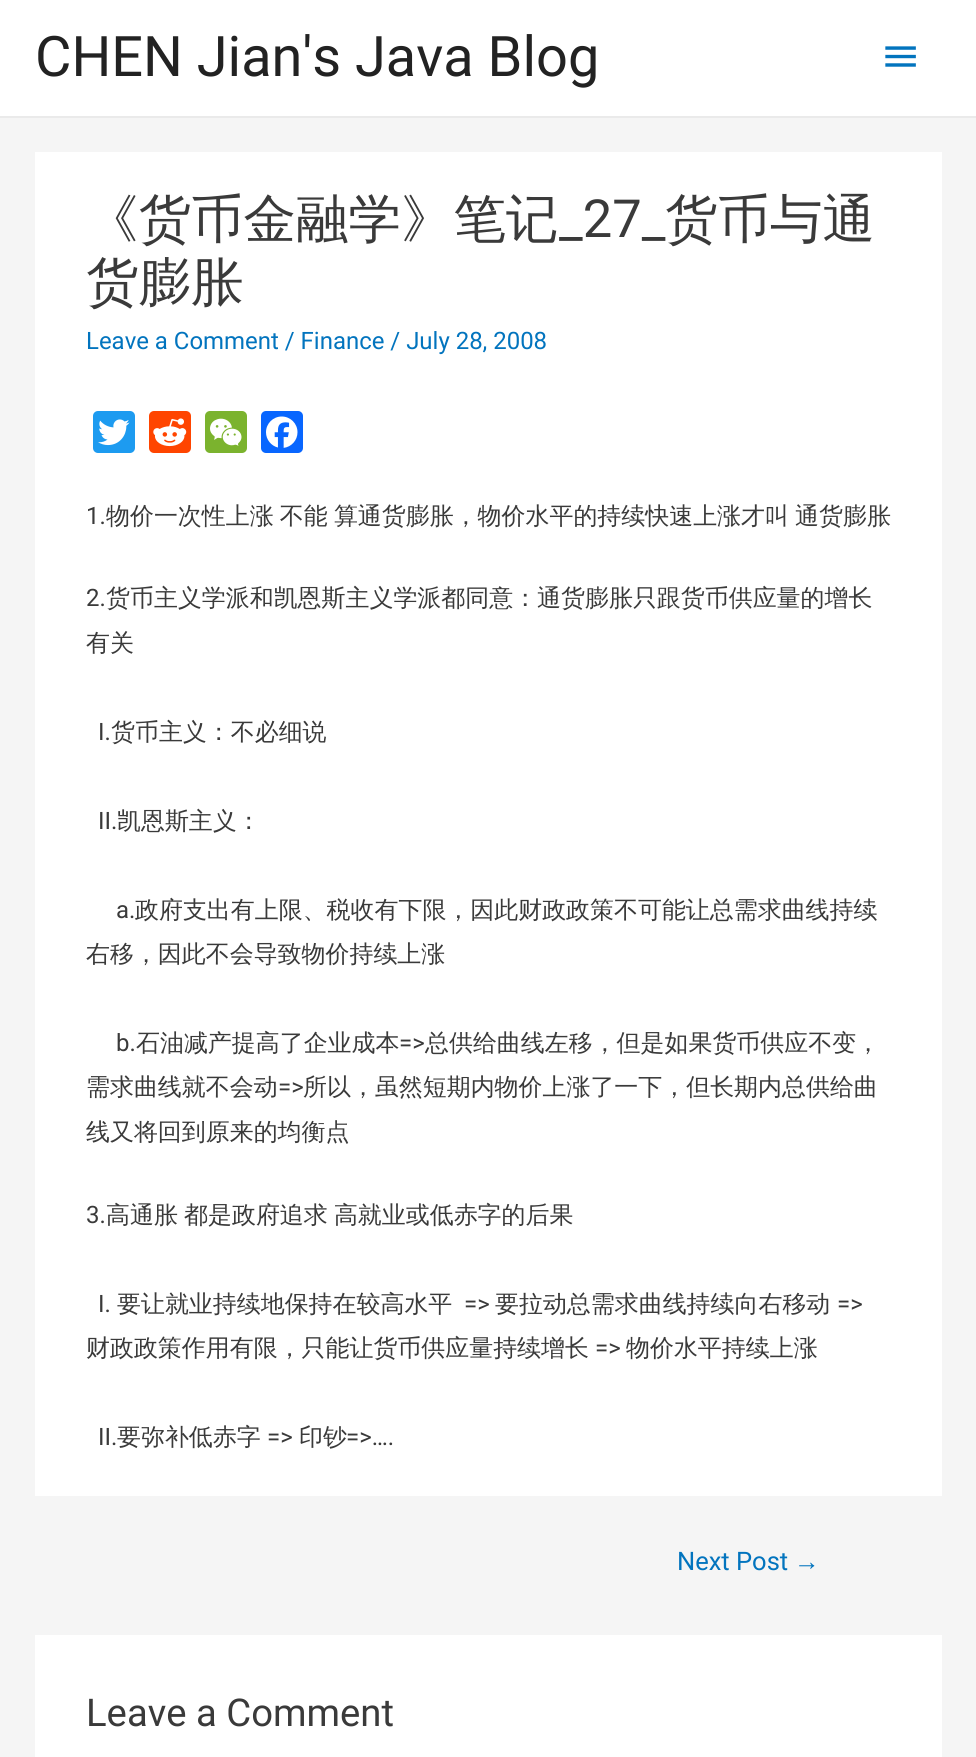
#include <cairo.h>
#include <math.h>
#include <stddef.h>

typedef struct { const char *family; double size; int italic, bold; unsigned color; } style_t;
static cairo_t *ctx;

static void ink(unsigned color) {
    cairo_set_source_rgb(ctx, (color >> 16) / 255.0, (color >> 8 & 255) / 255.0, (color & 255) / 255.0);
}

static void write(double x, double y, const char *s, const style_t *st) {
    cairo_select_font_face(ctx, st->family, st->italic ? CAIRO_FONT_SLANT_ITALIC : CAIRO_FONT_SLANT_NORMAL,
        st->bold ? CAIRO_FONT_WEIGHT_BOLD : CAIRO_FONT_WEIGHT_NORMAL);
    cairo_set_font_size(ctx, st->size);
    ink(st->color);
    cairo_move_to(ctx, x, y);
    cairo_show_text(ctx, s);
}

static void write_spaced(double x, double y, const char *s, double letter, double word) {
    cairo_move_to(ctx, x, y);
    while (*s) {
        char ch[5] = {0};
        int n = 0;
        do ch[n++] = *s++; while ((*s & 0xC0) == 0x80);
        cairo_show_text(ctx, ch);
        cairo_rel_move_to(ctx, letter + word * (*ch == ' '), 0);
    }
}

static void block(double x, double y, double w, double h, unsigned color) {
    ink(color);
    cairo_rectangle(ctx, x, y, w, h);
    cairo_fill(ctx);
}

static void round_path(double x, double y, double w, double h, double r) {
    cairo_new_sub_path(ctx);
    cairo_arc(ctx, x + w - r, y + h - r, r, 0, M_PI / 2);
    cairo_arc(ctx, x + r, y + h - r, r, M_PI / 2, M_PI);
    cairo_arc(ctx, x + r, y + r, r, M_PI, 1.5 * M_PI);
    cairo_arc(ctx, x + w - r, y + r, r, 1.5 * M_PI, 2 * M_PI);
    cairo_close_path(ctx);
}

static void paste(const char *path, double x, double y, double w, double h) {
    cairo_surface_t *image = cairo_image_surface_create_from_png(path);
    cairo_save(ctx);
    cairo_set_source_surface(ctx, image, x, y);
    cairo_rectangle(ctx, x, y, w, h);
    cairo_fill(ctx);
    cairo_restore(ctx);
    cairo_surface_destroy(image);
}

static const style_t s1 = {"Roboto", 55.9, 0, 0, 0x222222};
static const style_t s2 = {"WenQuanYi Zen Hei Medium", 52.5, 0, 0, 0x3a3a3a};
static const style_t s3 = {"Roboto", 52.5, 0, 0, 0x3a3a3a};
static const style_t s4 = {"Roboto", 23.95, 0, 0, 0x0274be};
static const style_t s5 = {"Roboto", 23.95, 0, 0, 0x3a3a3a};
static const style_t s6 = {"WenQuanYi Zen Hei Medium", 23.95, 0, 0, 0x3a3a3a};
static const style_t s7 = {"Roboto", 25.5, 0, 0, 0x0274be};
static const style_t s8 = {"Liberation Sans", 25.5, 0, 0, 0x0274be};
static const style_t s9 = {"Roboto", 38.25, 0, 0, 0x3a3a3a};

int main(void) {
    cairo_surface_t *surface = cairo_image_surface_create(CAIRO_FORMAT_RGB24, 976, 1757);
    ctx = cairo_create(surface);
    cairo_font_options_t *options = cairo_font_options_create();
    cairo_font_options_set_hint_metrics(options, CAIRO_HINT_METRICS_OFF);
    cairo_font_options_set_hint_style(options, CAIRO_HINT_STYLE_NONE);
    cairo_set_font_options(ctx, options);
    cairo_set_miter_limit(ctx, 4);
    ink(0xf5f5f5);
    cairo_paint(ctx);
    block(0, 116, 976, 2, 0xeaeaea);
    block(0, 0, 976, 116, 0xffffff);
    write(35, 76, "CHEN Jian's Java Blog", &s1);
    paste("pic1.png", 885, 46, 31, 21);
    block(35, 152, 907, 1344, 0xffffff);
    write(86, 237, "《货币金融学》笔记", &s2);
    write(559, 237, "_27_", &s3);
    write(665, 237, "货币与通", &s2);
    write(86, 300, "货膨胀", &s2);
    write(86, 349, "Leave a Comment / Finance / July 28, 2008", &s4);
    ink(0x1d9bf0);
    round_path(93, 411, 42, 42, 5);
    cairo_fill(ctx);
    paste("pic2.png", 98, 419, 32, 27);
    ink(0xff4500);
    round_path(149, 411, 42, 42, 5);
    cairo_fill(ctx);
    paste("pic3.png", 153, 418, 34, 29);
    ink(0x7bb32e);
    round_path(205, 411, 42, 42, 5);
    cairo_fill(ctx);
    paste("pic4.png", 210, 418, 32, 28);
    ink(0x0866ff);
    round_path(261, 411, 42, 42, 5);
    cairo_fill(ctx);
    paste("pic5.png", 266, 416, 32, 32);
    write(86, 524, "1.", &s5);
    cairo_select_font_face(ctx, "WenQuanYi Zen Hei Medium", CAIRO_FONT_SLANT_NORMAL, CAIRO_FONT_WEIGHT_NORMAL);
    write_spaced(106, 524, "物价一次性上涨 不能 算通货膨胀，物价水平的持续快速上涨才叫 通货膨胀", 0, -1);
    write(86, 606, "2.", &s5);
    write(106, 606, "货币主义学派和凯恩斯主义学派都同意：通货膨胀只跟货币供应量的增长", &s6);
    write(86, 651, "有关", &s6);
    write(98, 740, "I.", &s5);
    write(111, 740, "货币主义：不必细说", &s6);
    write(98, 829, "II.", &s5);
    write(117, 829, "凯恩斯主义：", &s6);
    write(116, 918, "a.", &s5);
    write(135, 918, "政府支出有上限、税收有下限，因此财政政策不可能让总需求曲线持续", &s6);
    write(86, 962, "右移，因此不会导致物价持续上涨", &s6);
    write(116, 1051, "b.", &s5);
    write(136, 1051, "石油减产提高了企业成本", &s6);
    write(399, 1051, "=>", &s5);
    write(425, 1051, "总供给曲线左移，但是如果货币供应不变，", &s6);
    write(86, 1095, "需求曲线就不会动", &s6);
    write(278, 1095, "=>", &s5);
    write(303, 1095, "所以，虽然短期内物价上涨了一下，但长期内总供给曲", &s6);
    write(86, 1140, "线又将回到原来的均衡点", &s6);
    write(86, 1223, "3.", &s5);
    cairo_select_font_face(ctx, "WenQuanYi Zen Hei Medium", CAIRO_FONT_SLANT_NORMAL, CAIRO_FONT_WEIGHT_NORMAL);
    write_spaced(106, 1223, "高通胀 都是政府追求 高就业或低赤字的后果", 0, -1);
    write(98, 1312, "I.", &s5);
    write(117, 1312, "要让就业持续地保持在较高水平", &s6);
    write(464, 1312, "=>", &s5);
    write(495, 1312, "要拉动总需求曲线持续向右移动", &s6);
    write(837, 1312, "=>", &s5);
    write(86, 1356, "财政政策作用有限，只能让货币供应量持续增长", &s6);
    write(595, 1356, "=>", &s5);
    write(626, 1356, "物价水平持续上涨", &s6);
    write(98, 1445, "II.", &s5);
    write(117, 1445, "要弥补低赤字", &s6);
    write(267, 1445, "=>", &s5);
    write(299, 1445, "印钞", &s6);
    write(346, 1445, "=>….", &s5);
    write(677, 1570, "Next Post", &s7);
    write(794, 1570, "→", &s8);
    block(35, 1635, 907, 122, 0xffffff);
    write(86, 1726, "Leave a Comment", &s9);
    cairo_surface_write_to_png(surface, "screenshot.png");
    cairo_font_options_destroy(options);
    cairo_destroy(ctx);
    cairo_surface_destroy(surface);
    return 0;
}
